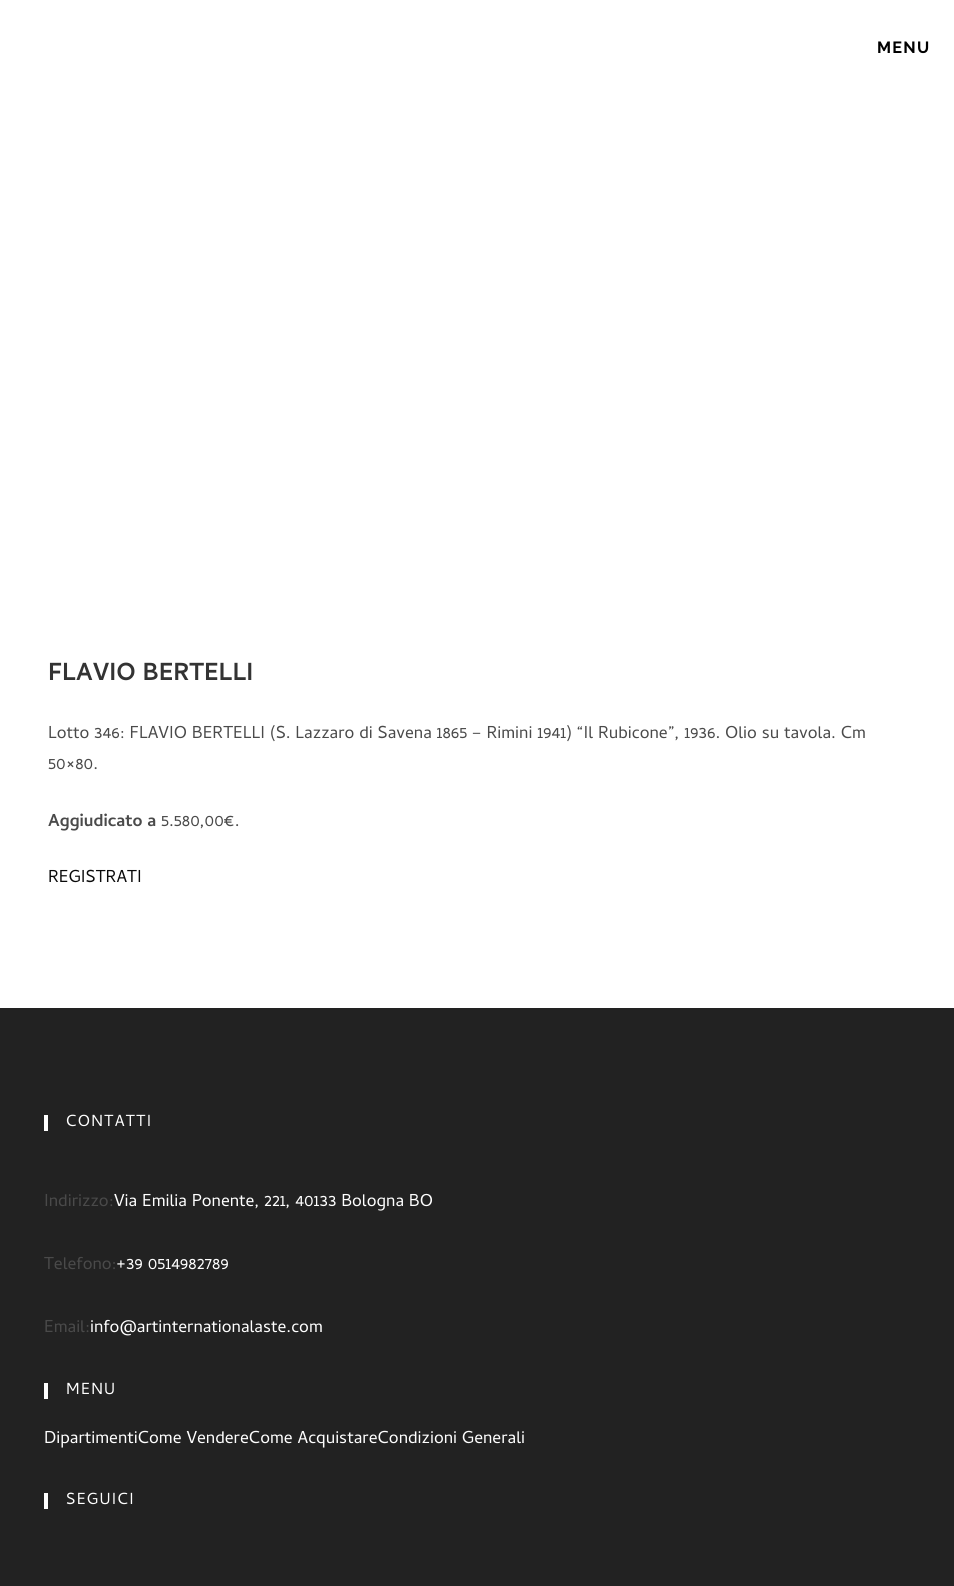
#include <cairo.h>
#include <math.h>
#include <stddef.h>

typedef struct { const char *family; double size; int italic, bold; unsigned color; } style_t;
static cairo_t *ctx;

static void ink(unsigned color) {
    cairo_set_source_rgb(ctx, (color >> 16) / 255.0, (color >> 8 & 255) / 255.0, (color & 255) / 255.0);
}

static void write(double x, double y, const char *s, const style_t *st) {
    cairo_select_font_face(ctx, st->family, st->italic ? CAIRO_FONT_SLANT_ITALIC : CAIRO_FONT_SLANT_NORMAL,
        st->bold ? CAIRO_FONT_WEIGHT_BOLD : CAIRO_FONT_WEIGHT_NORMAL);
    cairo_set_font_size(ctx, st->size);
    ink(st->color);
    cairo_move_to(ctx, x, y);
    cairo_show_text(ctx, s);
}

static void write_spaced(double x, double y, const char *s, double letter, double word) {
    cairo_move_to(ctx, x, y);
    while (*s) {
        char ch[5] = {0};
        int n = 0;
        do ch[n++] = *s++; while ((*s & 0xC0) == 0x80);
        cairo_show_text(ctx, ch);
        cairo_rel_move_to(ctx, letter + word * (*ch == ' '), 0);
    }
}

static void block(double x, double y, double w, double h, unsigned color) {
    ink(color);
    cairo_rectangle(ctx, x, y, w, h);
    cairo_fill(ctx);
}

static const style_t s1 = {"Cambay", 25, 0, 1, 0x333333};
static const style_t s2 = {"Cambay", 17.5, 0, 0, 0x4a4a4a};
static const style_t s3 = {"Cambay", 17.5, 0, 1, 0x4a4a4a};
static const style_t s4 = {"Cambay", 17.5, 0, 0, 0x0a0a0a};
static const style_t s5 = {"Cambay", 17.5, 0, 0, 0xffffff};

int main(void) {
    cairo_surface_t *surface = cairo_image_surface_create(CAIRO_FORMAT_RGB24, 954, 1586);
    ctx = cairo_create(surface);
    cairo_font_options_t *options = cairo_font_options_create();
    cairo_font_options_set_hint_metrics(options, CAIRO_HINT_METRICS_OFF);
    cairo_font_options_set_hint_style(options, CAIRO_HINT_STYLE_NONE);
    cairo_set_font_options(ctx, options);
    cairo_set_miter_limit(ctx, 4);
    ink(0xffffff);
    cairo_paint(ctx);
    cairo_select_font_face(ctx, "Raleway", CAIRO_FONT_SLANT_NORMAL, CAIRO_FONT_WEIGHT_BOLD);
    cairo_set_font_size(ctx, 16.25);
    ink(0x000000);
    write_spaced(877, 53, "MENU", 1.25, 0);
    write(48, 680, "FLAVIO BERTELLI", &s1);
    write(48, 738, "Lotto 346: FLAVIO BERTELLI (S. Lazzaro di Savena 1865 – Rimini 1941) “Il Rubicone”, 1936. Olio su tavola. Cm", &s2);
    write(48, 769, "50×80.", &s2);
    write(48, 826, "Aggiudicato a", &s3);
    write(161, 826, "5.580,00€.", &s2);
    write(48, 882, "REGISTRATI", &s4);
    block(0, 1008, 954, 578, 0x222222);
    block(44, 1115, 4, 16, 0xffffff);
    cairo_set_font_size(ctx, 16.25);
    write_spaced(66, 1126, "CONTATTI", 1.25, 0);
    write(44, 1206, "Indirizzo:", &s2);
    write(114, 1206, "Via Emilia Ponente, 221, 40133 Bologna BO", &s5);
    write(44, 1269, "Telefono:", &s2);
    write(116, 1269, "+39 0514982789", &s5);
    write(44, 1332, "Email:", &s2);
    write(90, 1332, "info@artinternationalaste.com", &s5);
    block(44, 1383, 4, 16, 0xffffff);
    cairo_set_font_size(ctx, 16.25);
    write_spaced(66, 1394, "MENU", 1.25, 0);
    write(44, 1443, "DipartimentiCome VendereCome AcquistareCondizioni Generali", &s5);
    block(44, 1493, 4, 16, 0xffffff);
    cairo_set_font_size(ctx, 16.25);
    write_spaced(66, 1504, "SEGUICI", 1.25, 0);
    cairo_surface_write_to_png(surface, "screenshot.png");
    cairo_font_options_destroy(options);
    cairo_destroy(ctx);
    cairo_surface_destroy(surface);
    return 0;
}
